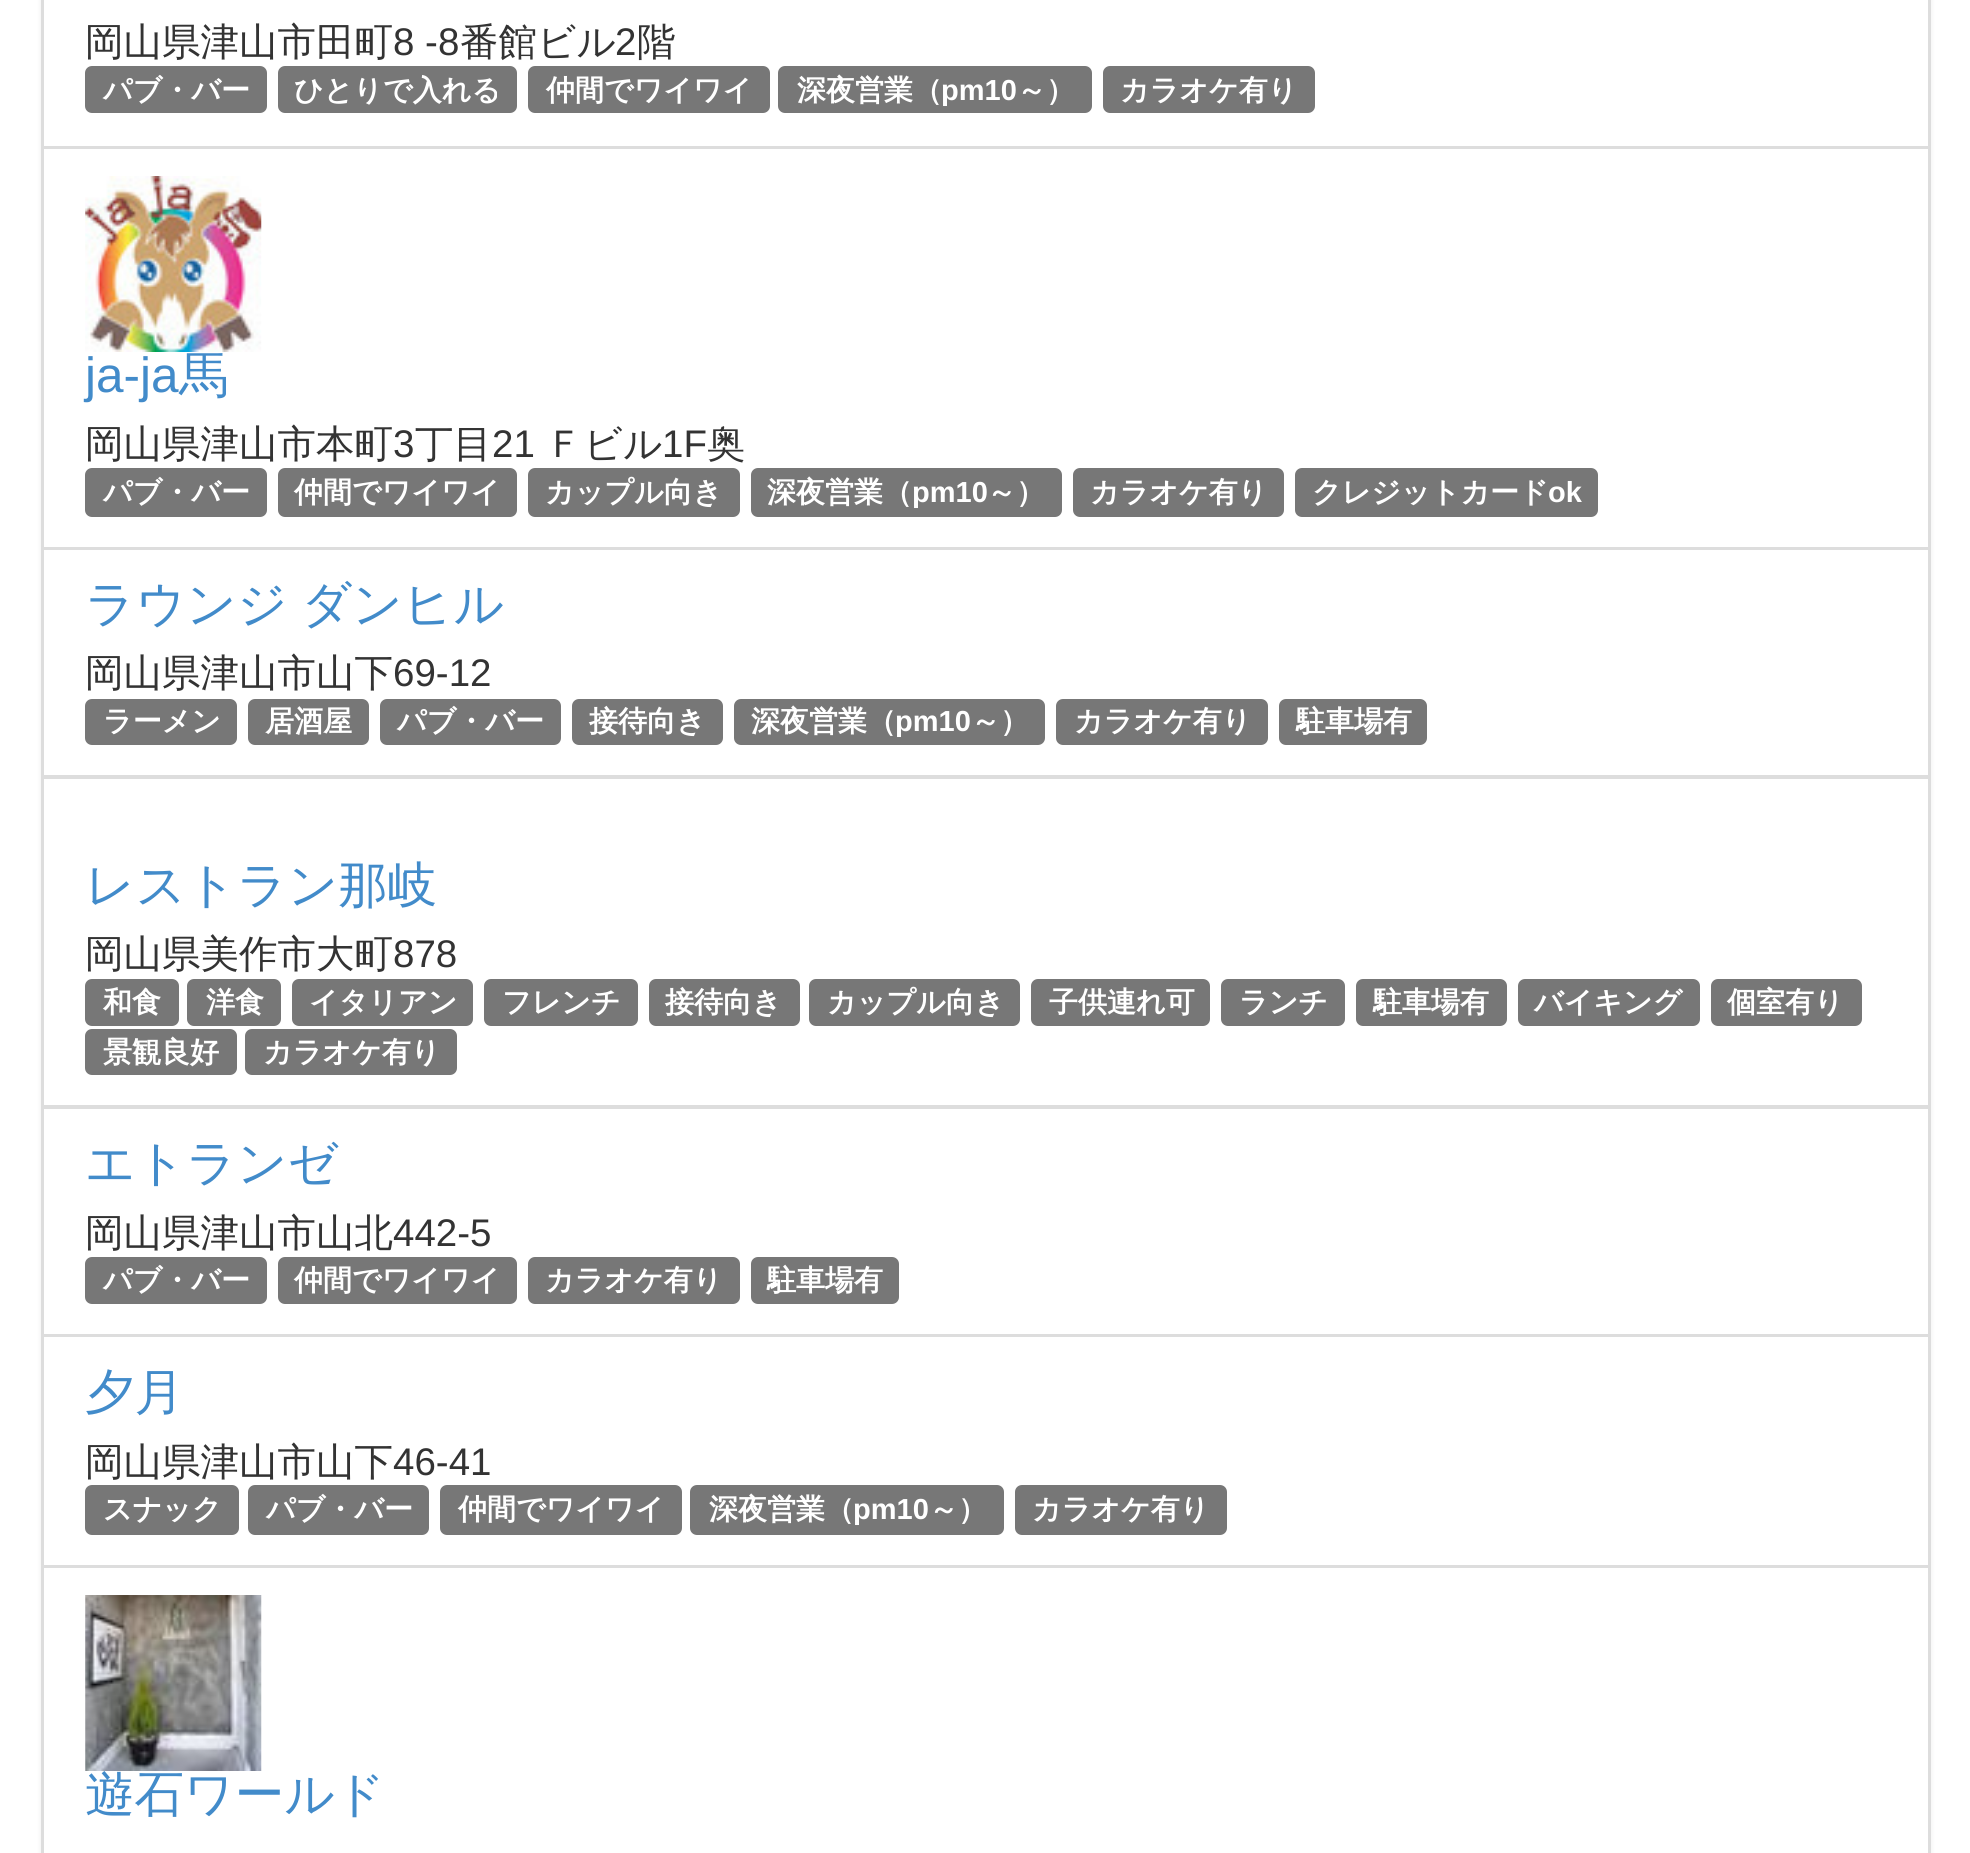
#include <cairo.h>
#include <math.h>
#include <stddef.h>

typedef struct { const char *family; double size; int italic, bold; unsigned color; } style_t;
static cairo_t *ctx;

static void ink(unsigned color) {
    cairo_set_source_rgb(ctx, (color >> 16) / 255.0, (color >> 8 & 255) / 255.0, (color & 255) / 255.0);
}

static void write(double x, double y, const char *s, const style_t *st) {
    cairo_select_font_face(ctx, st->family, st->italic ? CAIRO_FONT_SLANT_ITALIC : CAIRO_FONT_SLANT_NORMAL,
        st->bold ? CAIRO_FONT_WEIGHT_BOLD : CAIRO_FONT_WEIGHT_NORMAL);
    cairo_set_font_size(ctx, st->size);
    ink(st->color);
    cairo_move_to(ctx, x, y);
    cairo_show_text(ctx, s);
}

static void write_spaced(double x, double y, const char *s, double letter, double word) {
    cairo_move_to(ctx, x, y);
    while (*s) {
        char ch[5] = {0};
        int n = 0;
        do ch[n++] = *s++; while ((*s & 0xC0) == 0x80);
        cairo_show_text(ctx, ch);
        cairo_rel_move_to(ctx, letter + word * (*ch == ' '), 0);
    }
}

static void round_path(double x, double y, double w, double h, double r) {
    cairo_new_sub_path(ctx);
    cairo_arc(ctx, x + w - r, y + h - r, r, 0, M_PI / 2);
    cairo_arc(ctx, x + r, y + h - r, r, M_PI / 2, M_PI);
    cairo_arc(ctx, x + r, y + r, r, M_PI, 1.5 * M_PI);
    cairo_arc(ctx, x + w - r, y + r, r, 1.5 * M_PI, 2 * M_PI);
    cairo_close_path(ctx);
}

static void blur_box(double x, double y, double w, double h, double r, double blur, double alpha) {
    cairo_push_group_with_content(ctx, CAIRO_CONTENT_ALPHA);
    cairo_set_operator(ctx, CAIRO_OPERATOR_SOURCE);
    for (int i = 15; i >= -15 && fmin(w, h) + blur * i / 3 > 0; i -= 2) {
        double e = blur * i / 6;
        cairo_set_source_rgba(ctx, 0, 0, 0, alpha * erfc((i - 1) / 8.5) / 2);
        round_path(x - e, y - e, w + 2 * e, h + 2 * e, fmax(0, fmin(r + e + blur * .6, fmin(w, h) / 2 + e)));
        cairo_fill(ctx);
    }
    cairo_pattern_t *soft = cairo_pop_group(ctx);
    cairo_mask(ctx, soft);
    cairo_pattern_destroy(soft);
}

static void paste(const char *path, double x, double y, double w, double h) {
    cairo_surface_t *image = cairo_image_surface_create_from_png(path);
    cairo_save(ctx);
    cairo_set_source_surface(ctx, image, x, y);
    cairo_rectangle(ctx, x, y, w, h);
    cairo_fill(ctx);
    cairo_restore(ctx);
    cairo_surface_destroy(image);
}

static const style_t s1 = {"WenQuanYi Zen Hei Medium", 38.5, 0, 0, 0x333333};
static const style_t s2 = {"Liberation Sans", 38.5, 0, 0, 0x333333};
static const style_t s3 = {"WenQuanYi Zen Hei", 29, 0, 1, 0xffffff};
static const style_t s4 = {"Liberation Sans", 29, 0, 1, 0xffffff};
static const style_t s5 = {"Liberation Sans", 49.5, 0, 0, 0x428bca};
static const style_t s6 = {"WenQuanYi Zen Hei Medium", 49.5, 0, 0, 0x428bca};

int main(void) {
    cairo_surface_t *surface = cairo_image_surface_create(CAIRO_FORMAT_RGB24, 1970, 1853);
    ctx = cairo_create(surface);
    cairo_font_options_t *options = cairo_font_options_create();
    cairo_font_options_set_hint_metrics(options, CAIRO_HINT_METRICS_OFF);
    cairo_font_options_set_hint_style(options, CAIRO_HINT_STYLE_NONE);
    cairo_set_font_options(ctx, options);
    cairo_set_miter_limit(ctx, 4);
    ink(0xffffff);
    cairo_paint(ctx);
    ink(0x000000);
    blur_box(41, -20, 1890, 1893, 11, 3, 0.07);
    ink(0xffffff);
    cairo_rectangle(ctx, 42.5, -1.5, 1887, 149);
    cairo_fill_preserve(ctx);
    ink(0xdddddd);
    cairo_set_line_width(ctx, 3);
    cairo_stroke(ctx);
    write(85, 55, "岡山県津山市田町", &s1);
    write(393, 55, "8 -8", &s2);
    write(460, 55, "番館ビル", &s1);
    write(615, 55, "2", &s2);
    write(637, 55, "階", &s1);
    ink(0x777777);
    round_path(85, 66, 182, 47, 7);
    cairo_fill(ctx);
    write(103, 100, "パブ・バー", &s3);
    ink(0x777777);
    round_path(278, 66, 239, 47, 7);
    cairo_fill(ctx);
    write(294, 100, "ひとりで入れる", &s3);
    ink(0x777777);
    round_path(528, 66, 242, 47, 7);
    cairo_fill(ctx);
    write(546, 100, "仲間でワイワイ", &s3);
    ink(0x777777);
    round_path(778, 66, 314, 47, 7);
    cairo_fill(ctx);
    write(797, 100, "深夜営業（", &s3);
    write(941, 100, "pm10", &s4);
    write(1017, 100, "～）", &s3);
    ink(0x777777);
    round_path(1103, 66, 212, 47, 7);
    cairo_fill(ctx);
    write(1120, 100, "カラオケ有り", &s3);
    cairo_rectangle(ctx, 42.5, 147.5, 1887, 401);
    cairo_fill_preserve(ctx);
    ink(0xdddddd);
    cairo_stroke(ctx);
    paste("pic1.png", 85, 176, 177, 176);
    write(85, 392, "ja-ja", &s5);
    write(179, 392, "馬", &s6);
    write(85, 457, "岡山県津山市本町", &s1);
    write(393, 457, "3", &s2);
    write(415, 457, "丁目", &s1);
    write(492, 457, "21", &s2);
    write(545, 457, "Ｆビル", &s1);
    write(662, 457, "1F", &s2);
    write(707, 457, "奥", &s1);
    ink(0x777777);
    round_path(85, 468, 182, 49, 7);
    cairo_fill(ctx);
    write(103, 502, "パブ・バー", &s3);
    ink(0x777777);
    round_path(278, 468, 239, 49, 7);
    cairo_fill(ctx);
    write(294, 502, "仲間でワイワイ", &s3);
    ink(0x777777);
    round_path(528, 468, 212, 49, 7);
    cairo_fill(ctx);
    write(545, 502, "カップル向き", &s3);
    ink(0x777777);
    round_path(751, 468, 311, 49, 7);
    cairo_fill(ctx);
    write(767, 502, "深夜営業（", &s3);
    write(912, 502, "pm10", &s4);
    write(987, 502, "～）", &s3);
    ink(0x777777);
    round_path(1073, 468, 211, 49, 7);
    cairo_fill(ctx);
    write(1090, 502, "カラオケ有り", &s3);
    ink(0x777777);
    round_path(1295, 468, 303, 49, 7);
    cairo_fill(ctx);
    write(1312, 502, "クレジットカード", &s3);
    write(1548, 502, "ok", &s4);
    cairo_rectangle(ctx, 42.5, 548.5, 1887, 228);
    cairo_fill_preserve(ctx);
    ink(0xdddddd);
    cairo_stroke(ctx);
    cairo_select_font_face(ctx, "WenQuanYi Zen Hei Medium", CAIRO_FONT_SLANT_NORMAL, CAIRO_FONT_WEIGHT_NORMAL);
    cairo_set_font_size(ctx, 49.5);
    ink(0x428bca);
    write_spaced(85, 621, "ラウンジ ダンヒル", 0, -1);
    write(85, 686, "岡山県津山市山下", &s1);
    write(393, 686, "69-12", &s2);
    ink(0x777777);
    round_path(85, 699, 152, 46, 7);
    cairo_fill(ctx);
    write(103, 731, "ラーメン", &s3);
    ink(0x777777);
    round_path(248, 699, 121, 46, 7);
    cairo_fill(ctx);
    write(265, 731, "居酒屋", &s3);
    ink(0x777777);
    round_path(380, 699, 181, 46, 7);
    cairo_fill(ctx);
    write(397, 731, "パブ・バー", &s3);
    ink(0x777777);
    round_path(572, 699, 151, 46, 7);
    cairo_fill(ctx);
    write(589, 731, "接待向き", &s3);
    ink(0x777777);
    round_path(734, 699, 311, 46, 7);
    cairo_fill(ctx);
    write(751, 731, "深夜営業（", &s3);
    write(895, 731, "pm10", &s4);
    write(971, 731, "～）", &s3);
    ink(0x777777);
    round_path(1056, 699, 212, 46, 7);
    cairo_fill(ctx);
    write(1074, 731, "カラオケ有り", &s3);
    ink(0x777777);
    round_path(1279, 699, 148, 46, 7);
    cairo_fill(ctx);
    write(1296, 731, "駐車場有", &s3);
    cairo_rectangle(ctx, 42.5, 777.5, 1887, 329);
    cairo_fill_preserve(ctx);
    ink(0xdddddd);
    cairo_stroke(ctx);
    write(85, 902, "レストラン那岐", &s6);
    write(85, 967, "岡山県美作市大町", &s1);
    write(393, 967, "878", &s2);
    ink(0x777777);
    round_path(85, 979, 94, 47, 7);
    cairo_fill(ctx);
    write(103, 1012, "和食", &s3);
    ink(0x777777);
    round_path(187, 979, 94, 47, 7);
    cairo_fill(ctx);
    write(206, 1012, "洋食", &s3);
    ink(0x777777);
    round_path(292, 979, 181, 47, 7);
    cairo_fill(ctx);
    write(309, 1012, "イタリアン", &s3);
    ink(0x777777);
    round_path(484, 979, 154, 47, 7);
    cairo_fill(ctx);
    write(502, 1012, "フレンチ", &s3);
    ink(0x777777);
    round_path(649, 979, 151, 47, 7);
    cairo_fill(ctx);
    write(665, 1012, "接待向き", &s3);
    ink(0x777777);
    round_path(809, 979, 211, 47, 7);
    cairo_fill(ctx);
    write(827, 1012, "カップル向き", &s3);
    ink(0x777777);
    round_path(1031, 979, 179, 47, 7);
    cairo_fill(ctx);
    write(1049, 1012, "子供連れ可", &s3);
    ink(0x777777);
    round_path(1221, 979, 124, 47, 7);
    cairo_fill(ctx);
    write(1239, 1012, "ランチ", &s3);
    ink(0x777777);
    round_path(1356, 979, 151, 47, 7);
    cairo_fill(ctx);
    write(1373, 1012, "駐車場有", &s3);
    ink(0x777777);
    round_path(1518, 979, 182, 47, 7);
    cairo_fill(ctx);
    write(1534, 1012, "バイキング", &s3);
    ink(0x777777);
    round_path(1711, 979, 151, 47, 7);
    cairo_fill(ctx);
    write(1727, 1012, "個室有り", &s3);
    ink(0x777777);
    round_path(85, 1029, 152, 46, 7);
    cairo_fill(ctx);
    write(103, 1062, "景観良好", &s3);
    ink(0x777777);
    round_path(245, 1029, 212, 46, 7);
    cairo_fill(ctx);
    write(263, 1062, "カラオケ有り", &s3);
    cairo_rectangle(ctx, 42.5, 1107.5, 1887, 228);
    cairo_fill_preserve(ctx);
    ink(0xdddddd);
    cairo_stroke(ctx);
    write(85, 1180, "エトランゼ", &s6);
    write(85, 1246, "岡山県津山市山北", &s1);
    write(393, 1246, "442-5", &s2);
    ink(0x777777);
    round_path(85, 1257, 182, 47, 7);
    cairo_fill(ctx);
    write(103, 1290, "パブ・バー", &s3);
    ink(0x777777);
    round_path(278, 1257, 239, 47, 7);
    cairo_fill(ctx);
    write(294, 1290, "仲間でワイワイ", &s3);
    ink(0x777777);
    round_path(528, 1257, 212, 47, 7);
    cairo_fill(ctx);
    write(545, 1290, "カラオケ有り", &s3);
    ink(0x777777);
    round_path(751, 1257, 148, 47, 7);
    cairo_fill(ctx);
    write(767, 1290, "駐車場有", &s3);
    cairo_rectangle(ctx, 42.5, 1335.5, 1887, 231);
    cairo_fill_preserve(ctx);
    ink(0xdddddd);
    cairo_stroke(ctx);
    write(85, 1409, "夕月", &s6);
    write(85, 1475, "岡山県津山市山下", &s1);
    write(393, 1475, "46-41", &s2);
    ink(0x777777);
    round_path(85, 1485, 154, 50, 7);
    cairo_fill(ctx);
    write(103, 1519, "スナック", &s3);
    ink(0x777777);
    round_path(248, 1485, 181, 50, 7);
    cairo_fill(ctx);
    write(266, 1519, "パブ・バー", &s3);
    ink(0x777777);
    round_path(440, 1485, 242, 50, 7);
    cairo_fill(ctx);
    write(458, 1519, "仲間でワイワイ", &s3);
    ink(0x777777);
    round_path(690, 1485, 314, 50, 7);
    cairo_fill(ctx);
    write(709, 1519, "深夜営業（", &s3);
    write(853, 1519, "pm10", &s4);
    write(929, 1519, "～）", &s3);
    ink(0x777777);
    round_path(1015, 1485, 212, 50, 7);
    cairo_fill(ctx);
    write(1032, 1519, "カラオケ有り", &s3);
    cairo_rectangle(ctx, 42.5, 1566.5, 1887, 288);
    cairo_fill_preserve(ctx);
    ink(0xdddddd);
    cairo_stroke(ctx);
    paste("pic2.png", 85, 1595, 177, 176);
    write(85, 1811, "遊石ワールド", &s6);
    cairo_surface_write_to_png(surface, "screenshot.png");
    cairo_font_options_destroy(options);
    cairo_destroy(ctx);
    cairo_surface_destroy(surface);
    return 0;
}
